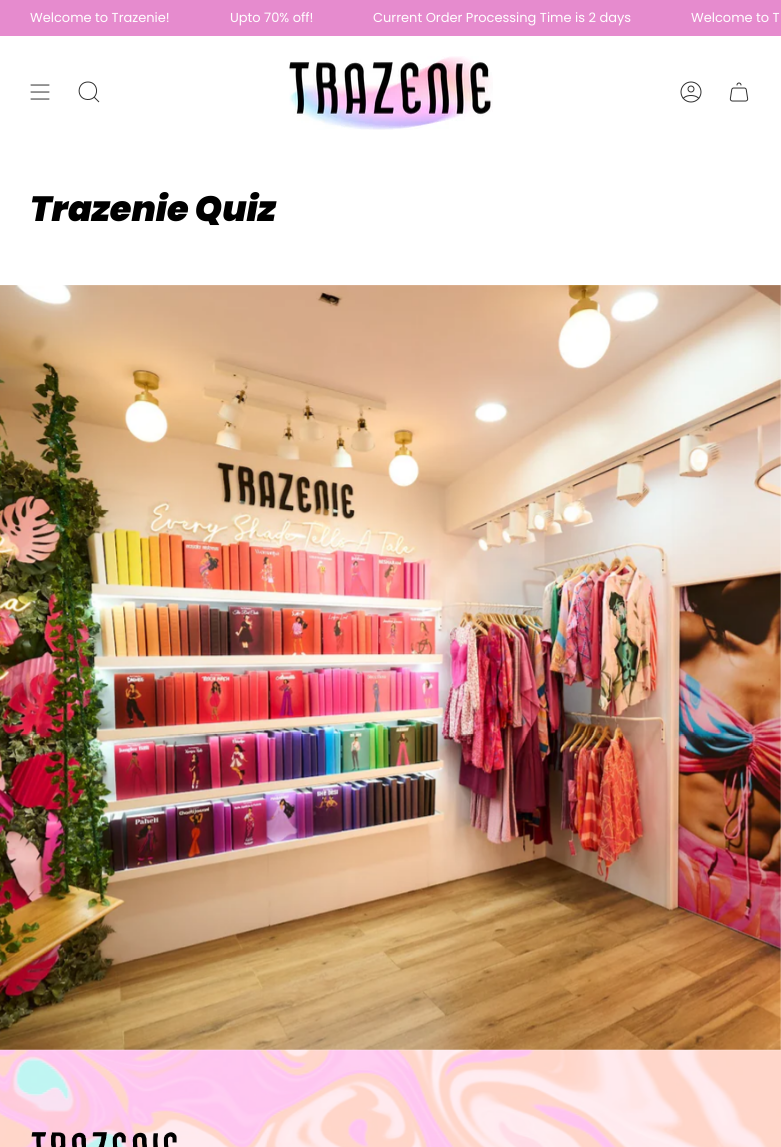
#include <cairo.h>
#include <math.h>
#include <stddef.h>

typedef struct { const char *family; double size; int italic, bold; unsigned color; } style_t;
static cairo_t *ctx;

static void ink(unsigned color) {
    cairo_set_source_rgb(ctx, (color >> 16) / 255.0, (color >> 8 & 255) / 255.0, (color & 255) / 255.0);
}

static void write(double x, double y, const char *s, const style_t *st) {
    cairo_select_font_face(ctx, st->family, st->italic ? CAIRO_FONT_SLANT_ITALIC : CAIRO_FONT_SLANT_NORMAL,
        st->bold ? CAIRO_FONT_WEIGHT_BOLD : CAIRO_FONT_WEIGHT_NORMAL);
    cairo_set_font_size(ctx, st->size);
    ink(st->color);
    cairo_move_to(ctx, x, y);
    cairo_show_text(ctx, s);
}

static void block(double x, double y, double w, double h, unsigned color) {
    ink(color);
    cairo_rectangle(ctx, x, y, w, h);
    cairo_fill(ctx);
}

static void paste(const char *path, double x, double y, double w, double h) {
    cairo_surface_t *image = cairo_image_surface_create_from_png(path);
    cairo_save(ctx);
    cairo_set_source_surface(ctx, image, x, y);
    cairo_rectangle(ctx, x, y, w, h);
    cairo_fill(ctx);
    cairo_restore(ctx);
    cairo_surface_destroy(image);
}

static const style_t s1 = {"Poppins", 13, 0, 0, 0xffffff};
static const style_t s2 = {"Poppins Black", 35, 1, 0, 0x000000};

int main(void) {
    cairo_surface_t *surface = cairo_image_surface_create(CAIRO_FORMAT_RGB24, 781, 1147);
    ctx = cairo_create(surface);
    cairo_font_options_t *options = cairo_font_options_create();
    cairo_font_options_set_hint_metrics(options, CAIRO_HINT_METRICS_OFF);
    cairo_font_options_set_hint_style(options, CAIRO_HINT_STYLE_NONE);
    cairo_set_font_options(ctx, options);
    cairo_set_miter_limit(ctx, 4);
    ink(0xffffff);
    cairo_paint(ctx);
    block(0, 0, 781, 36, 0xe68bce);
    write(30, 22, "Welcome to Trazenie!", &s1);
    write(230, 22, "Upto 70% off!", &s1);
    write(373, 22, "Current Order Processing Time is 2 days", &s1);
    write(691, 22, "Welcome to T", &s1);
    cairo_new_path(ctx);
    cairo_move_to(ctx, 31, 85);
    cairo_line_to(ctx, 49, 85);
    cairo_move_to(ctx, 31, 92);
    cairo_line_to(ctx, 49, 92);
    cairo_move_to(ctx, 31, 99);
    cairo_line_to(ctx, 49, 99);
    ink(0x2e2e2e);
    cairo_set_line_width(ctx, 1);
    cairo_set_line_cap(ctx, CAIRO_LINE_CAP_ROUND);
    cairo_set_line_join(ctx, CAIRO_LINE_JOIN_ROUND);
    cairo_stroke(ctx);
    cairo_new_path(ctx);
    cairo_move_to(ctx, 88, 82);
    cairo_curve_to(ctx, 99.5, 82, 99.5, 100, 87.5, 99.5);
    cairo_curve_to(ctx, 76, 99, 76.5, 82, 88, 82);
    cairo_close_path(ctx);
    cairo_move_to(ctx, 94, 97);
    cairo_line_to(ctx, 99, 102);
    cairo_set_line_cap(ctx, CAIRO_LINE_CAP_BUTT);
    cairo_set_line_join(ctx, CAIRO_LINE_JOIN_MITER);
    cairo_stroke(ctx);
    paste("pic1.png", 289, 56, 204, 74);
    paste("pic2.png", 680, 81, 22, 22);
    paste("pic3.png", 729, 82, 20, 20);
    write(30, 221, "Trazenie Quiz", &s2);
    paste("pic4.png", 0, 285, 781, 765);
    paste("pic5.png", 0, 1049, 781, 98);
    paste("pic6.png", 31, 1132, 146, 15);
    cairo_surface_write_to_png(surface, "screenshot.png");
    cairo_font_options_destroy(options);
    cairo_destroy(ctx);
    cairo_surface_destroy(surface);
    return 0;
}
